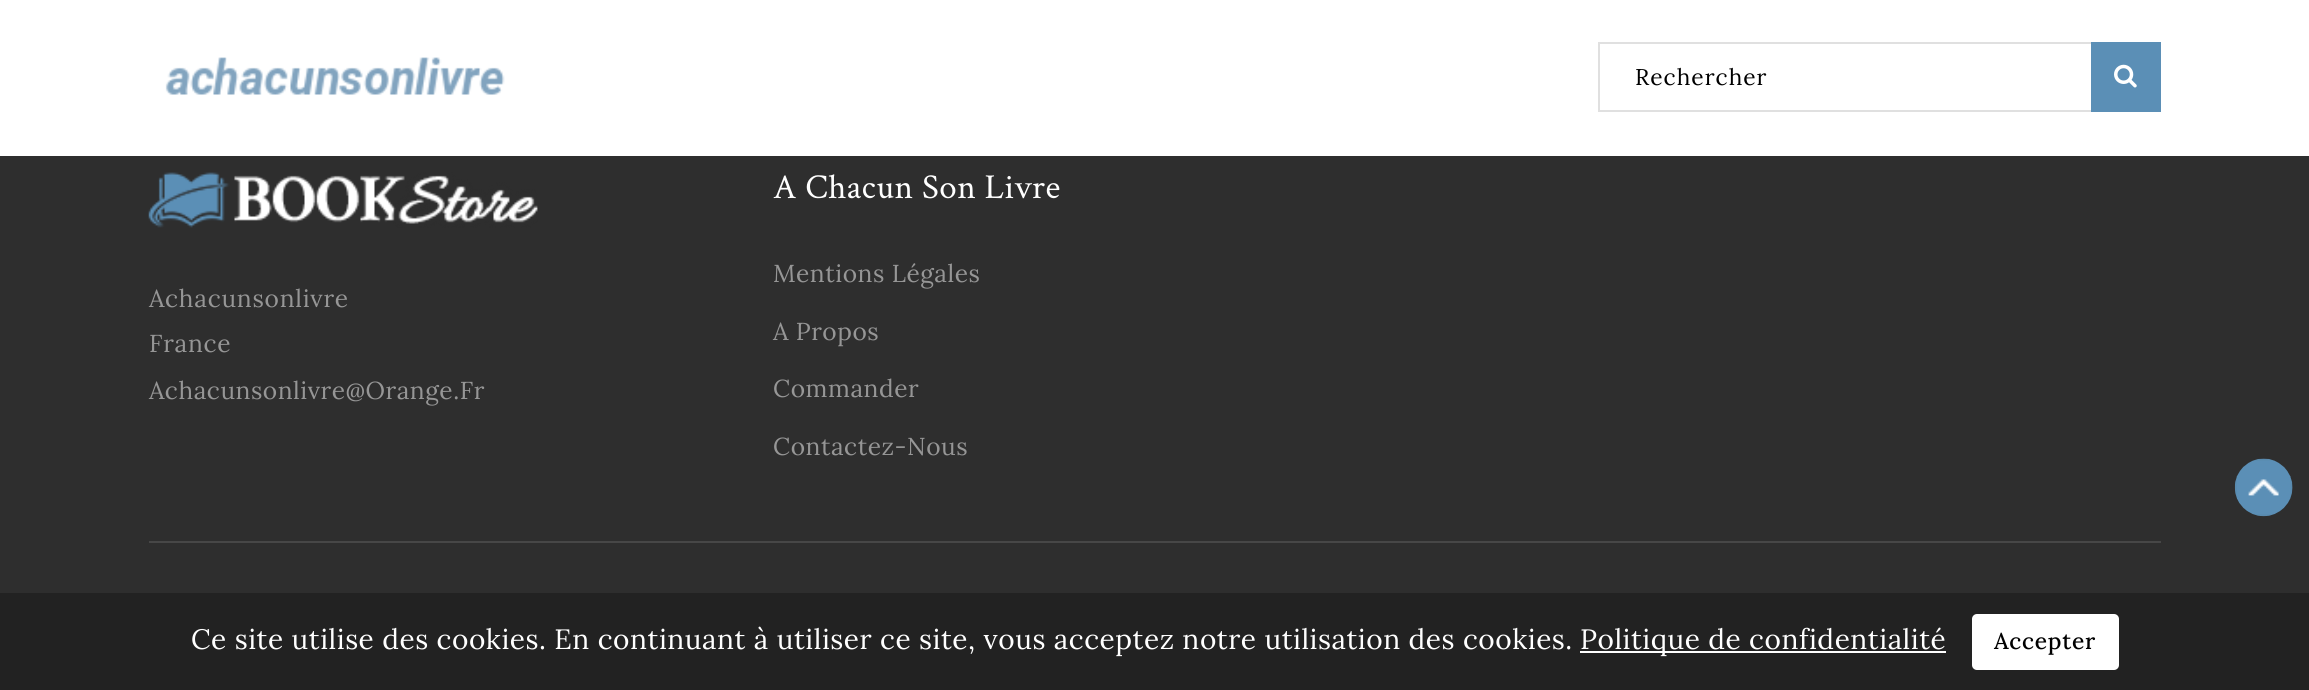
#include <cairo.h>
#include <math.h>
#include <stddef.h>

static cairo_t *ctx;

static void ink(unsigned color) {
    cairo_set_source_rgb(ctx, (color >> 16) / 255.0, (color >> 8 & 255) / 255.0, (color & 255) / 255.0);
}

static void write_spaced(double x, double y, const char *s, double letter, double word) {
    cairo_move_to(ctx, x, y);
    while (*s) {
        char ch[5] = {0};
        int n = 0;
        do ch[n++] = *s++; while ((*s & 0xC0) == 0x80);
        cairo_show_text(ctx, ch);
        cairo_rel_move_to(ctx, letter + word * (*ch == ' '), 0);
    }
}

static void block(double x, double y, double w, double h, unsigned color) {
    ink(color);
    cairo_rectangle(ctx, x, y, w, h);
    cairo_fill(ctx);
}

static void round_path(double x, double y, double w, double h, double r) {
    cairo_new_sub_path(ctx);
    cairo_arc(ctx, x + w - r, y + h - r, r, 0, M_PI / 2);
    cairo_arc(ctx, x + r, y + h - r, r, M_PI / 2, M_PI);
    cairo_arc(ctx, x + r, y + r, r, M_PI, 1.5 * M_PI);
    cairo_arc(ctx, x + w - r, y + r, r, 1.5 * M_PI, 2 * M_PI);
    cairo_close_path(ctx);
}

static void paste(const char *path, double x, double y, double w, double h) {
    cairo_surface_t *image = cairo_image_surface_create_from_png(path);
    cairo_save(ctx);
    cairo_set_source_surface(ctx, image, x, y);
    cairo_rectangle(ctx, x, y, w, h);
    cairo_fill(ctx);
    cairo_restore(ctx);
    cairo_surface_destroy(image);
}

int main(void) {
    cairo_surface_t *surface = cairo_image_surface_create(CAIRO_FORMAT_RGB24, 2309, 690);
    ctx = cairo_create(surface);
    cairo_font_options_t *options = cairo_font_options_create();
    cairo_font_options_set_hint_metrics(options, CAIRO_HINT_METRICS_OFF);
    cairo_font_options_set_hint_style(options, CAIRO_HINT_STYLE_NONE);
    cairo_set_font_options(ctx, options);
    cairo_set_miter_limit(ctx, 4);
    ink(0x2e2e2e);
    cairo_paint(ctx);
    block(0, 0, 2309, 156, 0xffffff);
    paste("pic1.png", 165, 57, 340, 38);
    cairo_rectangle(ctx, 1599, 43, 561, 68);
    ink(0xe0e0e0);
    cairo_stroke(ctx);
    cairo_select_font_face(ctx, "Lora", CAIRO_FONT_SLANT_NORMAL, CAIRO_FONT_WEIGHT_NORMAL);
    cairo_set_font_size(ctx, 22.75);
    ink(0x000000);
    write_spaced(1635, 85, "Rechercher", 1, 0);
    block(2091, 42, 70, 70, 0x5b8fb6);
    paste("pic2.png", 2114, 64, 23, 24);
    paste("pic3.png", 148, 172, 390, 56);
    cairo_select_font_face(ctx, "Crimson Text", CAIRO_FONT_SLANT_NORMAL, CAIRO_FONT_WEIGHT_NORMAL);
    cairo_set_font_size(ctx, 35);
    ink(0xffffff);
    write_spaced(773, 198, "A Chacun Son Livre", 0.53, 0);
    cairo_select_font_face(ctx, "Lora", CAIRO_FONT_SLANT_NORMAL, CAIRO_FONT_WEIGHT_NORMAL);
    cairo_set_font_size(ctx, 24.5);
    ink(0x969696);
    write_spaced(773, 282, "Mentions Légales", 0.53, 0);
    write_spaced(773, 340, "A Propos", 0.53, 0);
    write_spaced(773, 397, "Commander", 0.53, 0);
    write_spaced(773, 455, "Contactez-Nous", 0.53, 0);
    write_spaced(149, 307, "Achacunsonlivre", 0.75, 0);
    write_spaced(149, 352, "France", 0.75, 0);
    write_spaced(149, 399, "Achacunsonlivre@Orange.Fr", 0.53, 0);
    block(0, 593, 2309, 97, 0x222222);
    cairo_set_font_size(ctx, 28);
    ink(0xffffff);
    write_spaced(191, 649, "Ce site utilise des cookies. En continuant à utiliser ce site, vous acceptez notre utilisation des cookies.", 0.53, 0);
    block(1580, 651, 366, 2, 0xffffff);
    write_spaced(1580, 649, "Politique de confidentialité", 0.53, 0);
    round_path(1972, 614, 147, 56, 5);
    cairo_fill(ctx);
    cairo_select_font_face(ctx, "Lora Medium", CAIRO_FONT_SLANT_NORMAL, CAIRO_FONT_WEIGHT_NORMAL);
    cairo_set_font_size(ctx, 22.75);
    ink(0x000000);
    write_spaced(1994, 649, "Accepter", 0.75, 0);
    paste("pic4.png", 2234, 458, 59, 59);
    block(149, 541, 2012, 2, 0x474747);
    cairo_surface_write_to_png(surface, "screenshot.png");
    cairo_font_options_destroy(options);
    cairo_destroy(ctx);
    cairo_surface_destroy(surface);
    return 0;
}
